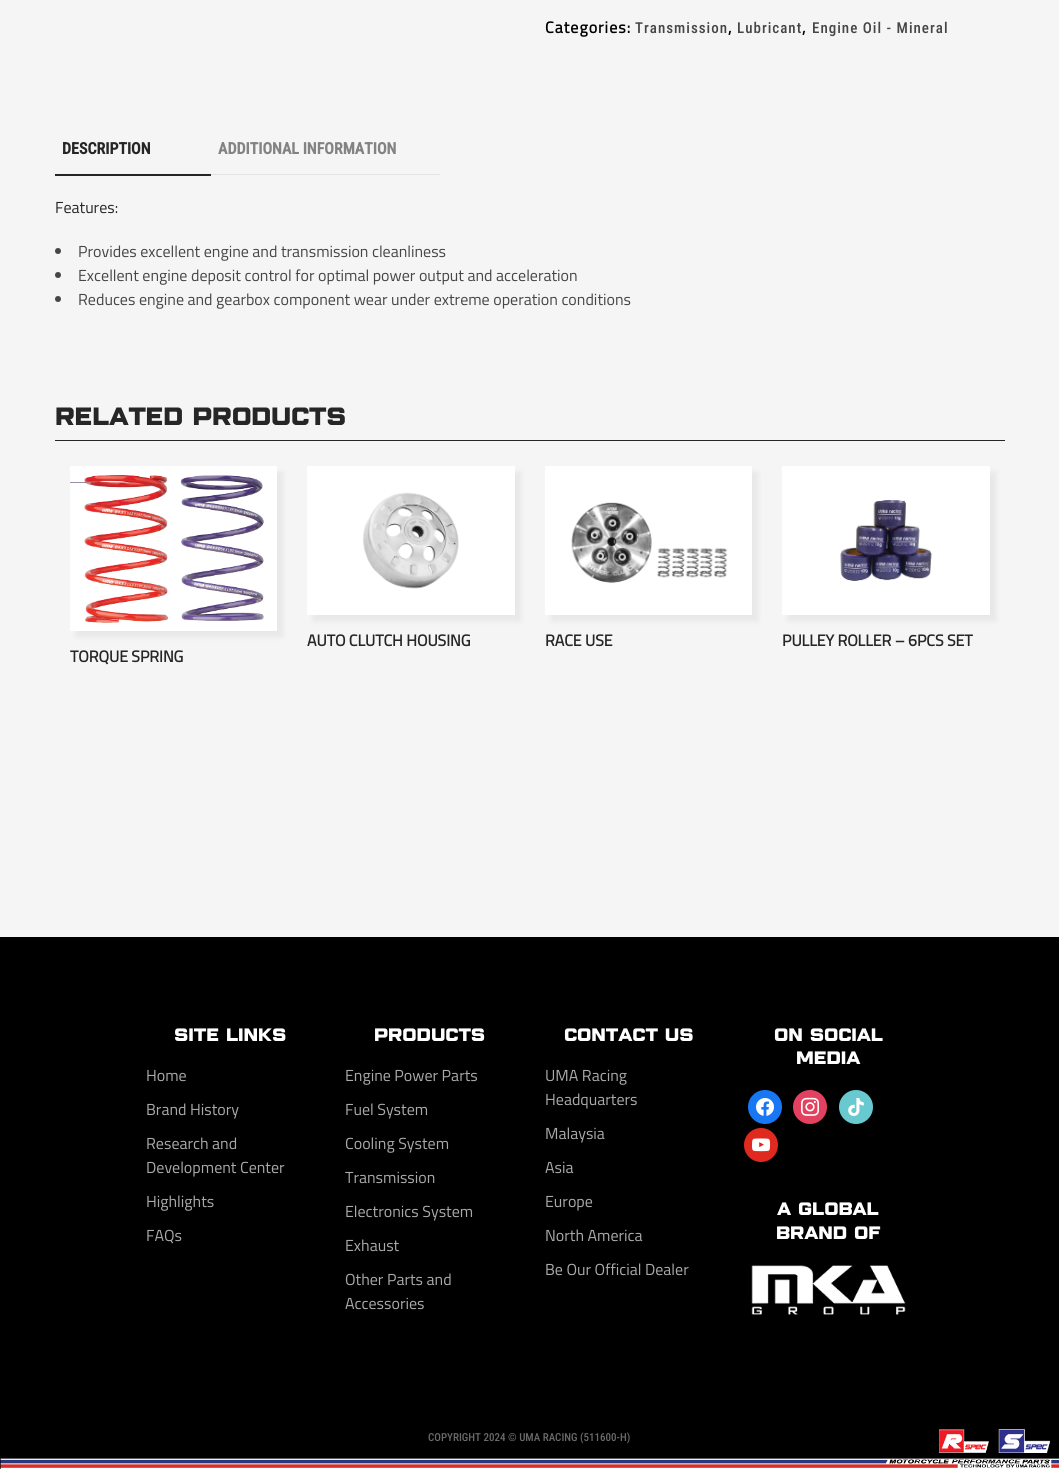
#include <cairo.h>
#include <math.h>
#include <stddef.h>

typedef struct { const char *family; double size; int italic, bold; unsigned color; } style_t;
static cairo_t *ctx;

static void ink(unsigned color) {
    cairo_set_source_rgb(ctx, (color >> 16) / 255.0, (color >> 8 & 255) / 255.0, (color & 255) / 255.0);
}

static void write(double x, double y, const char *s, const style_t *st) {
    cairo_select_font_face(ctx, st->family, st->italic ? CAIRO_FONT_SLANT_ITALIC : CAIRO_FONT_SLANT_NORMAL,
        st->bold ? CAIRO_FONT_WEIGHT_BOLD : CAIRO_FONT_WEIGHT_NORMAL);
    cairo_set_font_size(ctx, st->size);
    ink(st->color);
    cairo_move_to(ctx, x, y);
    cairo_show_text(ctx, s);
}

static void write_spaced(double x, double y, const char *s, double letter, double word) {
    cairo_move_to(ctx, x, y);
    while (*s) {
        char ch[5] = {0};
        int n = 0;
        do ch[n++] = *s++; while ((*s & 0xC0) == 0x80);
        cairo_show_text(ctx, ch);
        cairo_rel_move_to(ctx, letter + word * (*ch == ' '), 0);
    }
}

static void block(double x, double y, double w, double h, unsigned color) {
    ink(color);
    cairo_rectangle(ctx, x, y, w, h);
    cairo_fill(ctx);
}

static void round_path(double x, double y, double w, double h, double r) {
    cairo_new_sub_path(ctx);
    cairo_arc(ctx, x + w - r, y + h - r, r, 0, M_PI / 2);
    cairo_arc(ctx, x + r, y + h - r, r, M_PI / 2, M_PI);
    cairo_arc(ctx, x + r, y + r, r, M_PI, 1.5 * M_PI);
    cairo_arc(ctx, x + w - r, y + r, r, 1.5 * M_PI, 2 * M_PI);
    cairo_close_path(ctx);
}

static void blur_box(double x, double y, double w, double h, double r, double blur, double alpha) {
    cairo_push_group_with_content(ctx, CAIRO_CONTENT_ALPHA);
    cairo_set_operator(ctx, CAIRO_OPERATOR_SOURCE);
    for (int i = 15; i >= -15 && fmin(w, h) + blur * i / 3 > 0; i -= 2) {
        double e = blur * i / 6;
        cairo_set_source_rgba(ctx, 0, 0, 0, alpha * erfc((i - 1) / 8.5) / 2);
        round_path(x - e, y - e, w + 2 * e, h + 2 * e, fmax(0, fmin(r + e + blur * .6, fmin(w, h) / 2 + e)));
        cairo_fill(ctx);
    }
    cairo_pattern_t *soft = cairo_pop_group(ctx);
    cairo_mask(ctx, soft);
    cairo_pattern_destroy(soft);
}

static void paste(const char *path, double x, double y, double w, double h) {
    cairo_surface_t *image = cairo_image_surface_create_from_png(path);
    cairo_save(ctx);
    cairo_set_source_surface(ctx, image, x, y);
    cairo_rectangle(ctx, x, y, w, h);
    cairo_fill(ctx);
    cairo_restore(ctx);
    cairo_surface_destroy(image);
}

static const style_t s1 = {"Roboto Condensed", 16, 0, 1, 0x262626};
static const style_t s2 = {"Roboto Condensed", 16, 0, 1, 0x838383};
static const style_t s3 = {"Titillium Web", 16, 0, 0, 0x262626};
static const style_t s4 = {"Titillium Web", 16, 0, 0, 0x464646};
static const style_t s5 = {"Titillium Web", 16, 0, 0, 0xaaaaaa};
static const style_t s6 = {"Roboto Condensed Medium", 11, 0, 0, 0x6b6a6a};

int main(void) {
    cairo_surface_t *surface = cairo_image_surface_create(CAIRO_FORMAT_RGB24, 1059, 1469);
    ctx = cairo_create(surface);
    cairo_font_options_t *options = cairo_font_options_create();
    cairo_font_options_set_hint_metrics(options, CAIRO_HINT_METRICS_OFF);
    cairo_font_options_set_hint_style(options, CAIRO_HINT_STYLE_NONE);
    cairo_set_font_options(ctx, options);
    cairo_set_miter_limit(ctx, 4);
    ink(0xf5f5f5);
    cairo_paint(ctx);
    cairo_select_font_face(ctx, "Titillium Web", CAIRO_FONT_SLANT_NORMAL, CAIRO_FONT_WEIGHT_BOLD);
    cairo_set_font_size(ctx, 16);
    ink(0x000000);
    write_spaced(545, 33, "Categories:", 1, 0);
    cairo_select_font_face(ctx, "Roboto Condensed Medium", CAIRO_FONT_SLANT_NORMAL, CAIRO_FONT_WEIGHT_NORMAL);
    cairo_set_font_size(ctx, 15);
    ink(0x464646);
    write_spaced(635, 33, "Transmission", 1, 0);
    cairo_select_font_face(ctx, "Titillium Web", CAIRO_FONT_SLANT_NORMAL, CAIRO_FONT_WEIGHT_BOLD);
    cairo_set_font_size(ctx, 16);
    ink(0x000000);
    write_spaced(728, 33, ",", 1, 0);
    cairo_select_font_face(ctx, "Roboto Condensed Medium", CAIRO_FONT_SLANT_NORMAL, CAIRO_FONT_WEIGHT_NORMAL);
    cairo_set_font_size(ctx, 15);
    ink(0x464646);
    write_spaced(737, 33, "Lubricant", 1, 0);
    cairo_select_font_face(ctx, "Titillium Web", CAIRO_FONT_SLANT_NORMAL, CAIRO_FONT_WEIGHT_BOLD);
    cairo_set_font_size(ctx, 16);
    ink(0x000000);
    write_spaced(802, 33, ",", 1, 0);
    cairo_select_font_face(ctx, "Roboto Condensed Medium", CAIRO_FONT_SLANT_NORMAL, CAIRO_FONT_WEIGHT_NORMAL);
    cairo_set_font_size(ctx, 15);
    ink(0x464646);
    write_spaced(812, 33, "Engine Oil - Mineral", 1, 0);
    block(55, 174, 156, 2, 0x262626);
    write(62, 154, "DESCRIPTION", &s1);
    block(211, 174, 229, 1, 0xe3e3e3);
    write(218, 154, "ADDITIONAL INFORMATION", &s2);
    write(55, 213, "Features:", &s3);
    ink(0x464646);
    cairo_new_path(ctx);
    cairo_arc(ctx, 58, 251, 3, 0, 2 * M_PI);
    cairo_fill(ctx);
    write(78, 257, "Provides excellent engine and transmission cleanliness", &s4);
    cairo_new_path(ctx);
    cairo_arc(ctx, 58, 275, 3, 0, 2 * M_PI);
    cairo_fill(ctx);
    write(78, 281, "Excellent engine deposit control for optimal power output and acceleration", &s4);
    cairo_new_path(ctx);
    cairo_arc(ctx, 58, 299, 3, 0, 2 * M_PI);
    cairo_fill(ctx);
    write(78, 305, "Reduces engine and gearbox component wear under extreme operation conditions", &s4);
    cairo_select_font_face(ctx, "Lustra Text", CAIRO_FONT_SLANT_NORMAL, CAIRO_FONT_WEIGHT_BOLD);
    cairo_set_font_size(ctx, 25);
    ink(0x262626);
    write_spaced(55, 425, "RELATED PRODUCTS", -0.25, 0);
    block(55, 440, 950, 1, 0x262626);
    ink(0x000000);
    blur_box(313, 472, 208, 149, 0, 3, 0.06);
    paste("pic1.png", 307, 466, 208, 149);
    cairo_select_font_face(ctx, "Titillium Web", CAIRO_FONT_SLANT_NORMAL, CAIRO_FONT_WEIGHT_BOLD);
    cairo_set_font_size(ctx, 16);
    ink(0x262626);
    write_spaced(307, 646, "AUTO CLUTCH HOUSING", -0.1, 0);
    ink(0x000000);
    blur_box(551, 472, 207, 149, 0, 3, 0.06);
    paste("pic2.png", 545, 466, 207, 149);
    ink(0x262626);
    write_spaced(545, 646, "RACE USE", -0.1, 0);
    ink(0x000000);
    blur_box(788, 472, 208, 149, 0, 3, 0.06);
    paste("pic3.png", 782, 466, 208, 149);
    ink(0x262626);
    write_spaced(782, 646, "PULLEY ROLLER – 6PCS SET", -0.1, 0);
    ink(0x000000);
    blur_box(76, 472, 207, 165, 0, 3, 0.06);
    paste("pic4.png", 70, 466, 207, 165);
    ink(0x262626);
    write_spaced(70, 662, "TORQUE SPRING", -0.1, 0);
    block(0, 937, 1059, 532, 0x000000);
    paste("pic5.png", 0, 1429, 1059, 40);
    cairo_select_font_face(ctx, "Lustra Text", CAIRO_FONT_SLANT_NORMAL, CAIRO_FONT_WEIGHT_BOLD);
    cairo_set_font_size(ctx, 18);
    ink(0xffffff);
    write_spaced(174, 1041, "SITE LINKS", -0.1, 0);
    write(146, 1081, "Home", &s5);
    write(146, 1115, "Brand History", &s5);
    write(146, 1149, "Research and", &s5);
    write(146, 1173, "Development Center", &s5);
    write(146, 1207, "Highlights", &s5);
    write(146, 1241, "FAQs", &s5);
    cairo_select_font_face(ctx, "Lustra Text", CAIRO_FONT_SLANT_NORMAL, CAIRO_FONT_WEIGHT_BOLD);
    cairo_set_font_size(ctx, 18);
    ink(0xffffff);
    write_spaced(374, 1041, "PRODUCTS", -0.1, 0);
    write(345, 1081, "Engine Power Parts", &s5);
    write(345, 1115, "Fuel System", &s5);
    write(345, 1149, "Cooling System", &s5);
    write(345, 1183, "Transmission", &s5);
    write(345, 1217, "Electronics System", &s5);
    write(345, 1251, "Exhaust", &s5);
    write(345, 1285, "Other Parts and", &s5);
    write(345, 1309, "Accessories", &s5);
    cairo_select_font_face(ctx, "Lustra Text", CAIRO_FONT_SLANT_NORMAL, CAIRO_FONT_WEIGHT_BOLD);
    cairo_set_font_size(ctx, 18);
    ink(0xffffff);
    write_spaced(564, 1041, "CONTACT US", -0.1, 0);
    write(545, 1081, "UMA Racing", &s5);
    write(545, 1105, "Headquarters", &s5);
    write(545, 1139, "Malaysia", &s5);
    write(545, 1173, "Asia", &s5);
    write(545, 1207, "Europe", &s5);
    write(545, 1241, "North America", &s5);
    write(545, 1275, "Be Our Official Dealer", &s5);
    cairo_select_font_face(ctx, "Lustra Text", CAIRO_FONT_SLANT_NORMAL, CAIRO_FONT_WEIGHT_BOLD);
    cairo_set_font_size(ctx, 18);
    ink(0xffffff);
    write_spaced(774, 1041, "ON SOCIAL", -0.1, 0);
    write_spaced(796, 1064, "MEDIA", -0.1, 0);
    ink(0x1877f2);
    cairo_new_path(ctx);
    cairo_arc(ctx, 765, 1107, 17, 0, 2 * M_PI);
    cairo_fill(ctx);
    paste("pic6.png", 756, 1098, 18, 18);
    ink(0xe4405f);
    cairo_arc(ctx, 810, 1107, 17, 0, 2 * M_PI);
    cairo_fill(ctx);
    paste("pic7.png", 801, 1097, 18, 19);
    ink(0x69c9d0);
    cairo_arc(ctx, 856, 1107, 17, 0, 2 * M_PI);
    cairo_fill(ctx);
    paste("pic8.png", 848, 1098, 16, 18);
    ink(0xe02a20);
    cairo_arc(ctx, 761, 1145, 17, 0, 2 * M_PI);
    cairo_fill(ctx);
    paste("pic9.png", 752, 1138, 19, 14);
    ink(0xffffff);
    write_spaced(777, 1215, "A GLOBAL", -0.1, 0);
    write_spaced(776, 1239, "BRAND OF", -0.1, 0);
    paste("pic10.png", 751, 1265, 155, 50);
    write(428, 1441, "COPYRIGHT 2024 © UMA RACING (511600-H)", &s6);
    cairo_surface_write_to_png(surface, "screenshot.png");
    cairo_font_options_destroy(options);
    cairo_destroy(ctx);
    cairo_surface_destroy(surface);
    return 0;
}
